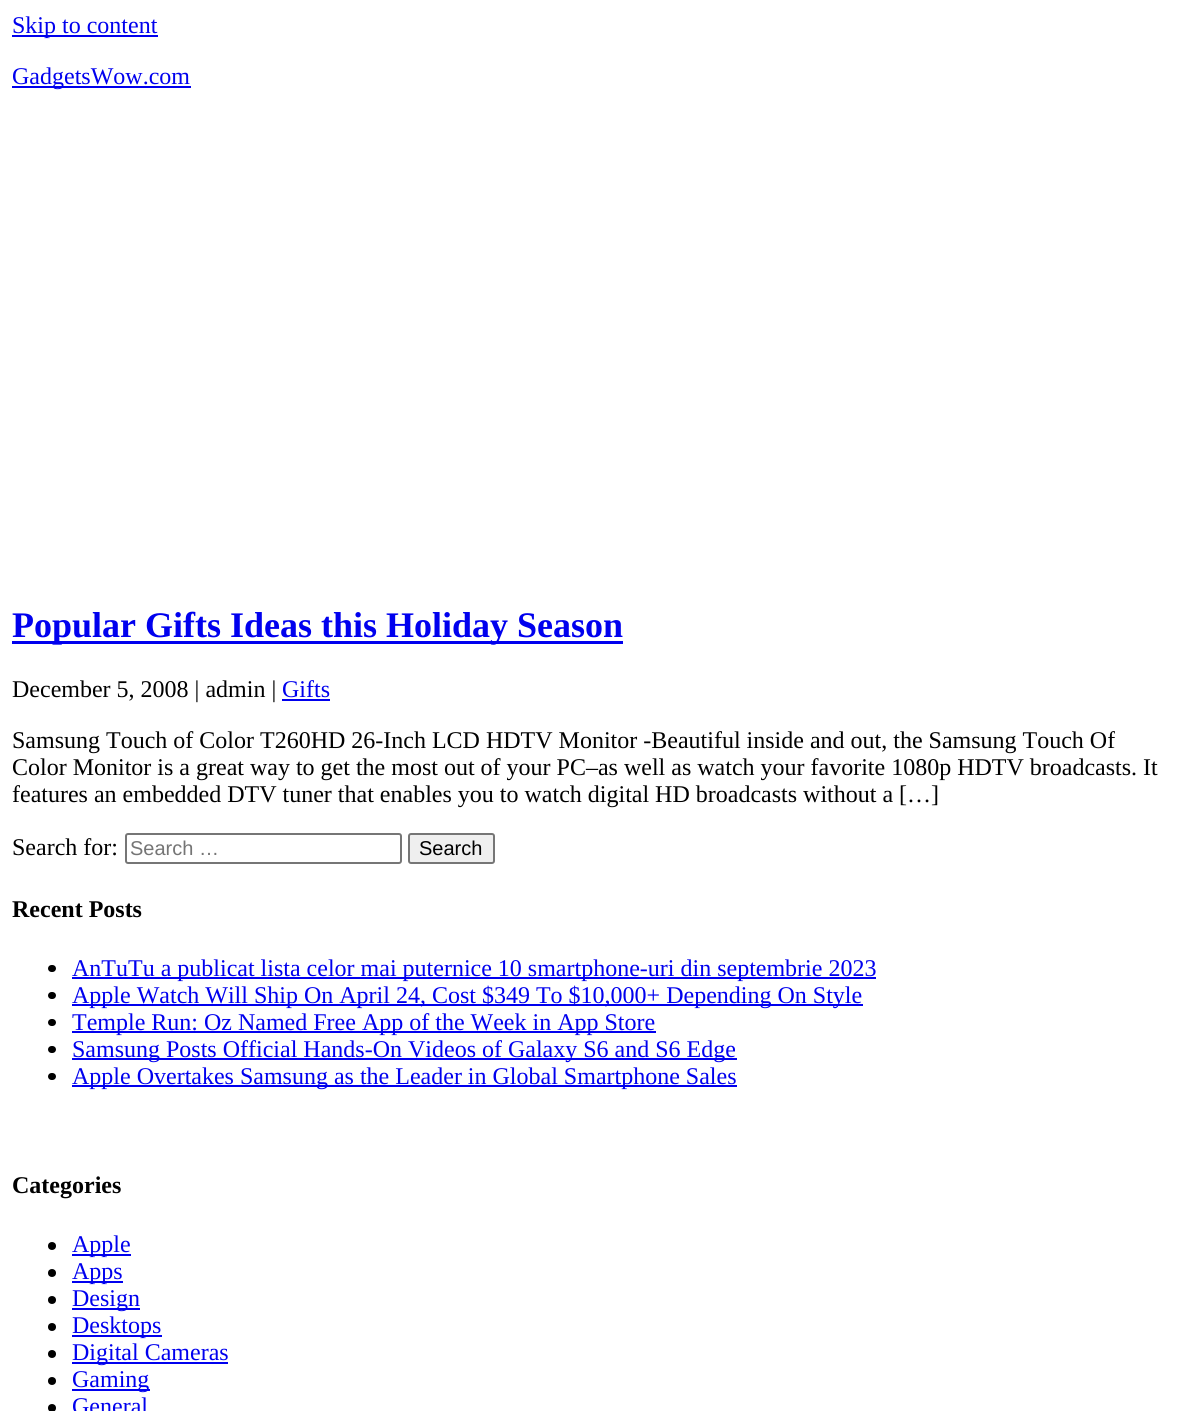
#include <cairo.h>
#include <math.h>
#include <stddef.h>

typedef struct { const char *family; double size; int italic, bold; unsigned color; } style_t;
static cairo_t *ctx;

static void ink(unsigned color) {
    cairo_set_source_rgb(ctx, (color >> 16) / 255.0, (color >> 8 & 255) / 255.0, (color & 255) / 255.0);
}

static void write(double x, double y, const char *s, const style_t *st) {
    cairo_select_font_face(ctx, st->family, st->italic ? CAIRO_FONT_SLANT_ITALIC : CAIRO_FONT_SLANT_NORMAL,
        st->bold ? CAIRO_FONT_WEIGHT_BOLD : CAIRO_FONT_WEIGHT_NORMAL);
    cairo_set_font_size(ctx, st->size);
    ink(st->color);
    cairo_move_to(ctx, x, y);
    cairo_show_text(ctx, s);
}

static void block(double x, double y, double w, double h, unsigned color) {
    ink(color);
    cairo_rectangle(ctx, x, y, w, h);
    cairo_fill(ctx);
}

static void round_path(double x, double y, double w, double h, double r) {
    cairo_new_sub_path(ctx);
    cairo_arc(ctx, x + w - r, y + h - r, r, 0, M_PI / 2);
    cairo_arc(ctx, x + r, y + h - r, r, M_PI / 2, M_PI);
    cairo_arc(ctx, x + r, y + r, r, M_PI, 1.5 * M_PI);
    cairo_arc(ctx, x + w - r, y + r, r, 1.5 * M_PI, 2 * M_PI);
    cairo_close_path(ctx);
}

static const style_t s1 = {"Liberation Serif", 24, 0, 0, 0x0000ee};
static const style_t s2 = {"Liberation Serif", 36, 0, 1, 0x0000ee};
static const style_t s3 = {"Liberation Serif", 24, 0, 0, 0x000000};
static const style_t s4 = {"Liberation Sans", 20, 0, 0, 0x757575};
static const style_t s5 = {"Liberation Sans", 20, 0, 0, 0x000000};
static const style_t s6 = {"Liberation Serif", 24, 0, 1, 0x000000};

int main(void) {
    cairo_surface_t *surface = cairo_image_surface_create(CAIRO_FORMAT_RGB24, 1186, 1411);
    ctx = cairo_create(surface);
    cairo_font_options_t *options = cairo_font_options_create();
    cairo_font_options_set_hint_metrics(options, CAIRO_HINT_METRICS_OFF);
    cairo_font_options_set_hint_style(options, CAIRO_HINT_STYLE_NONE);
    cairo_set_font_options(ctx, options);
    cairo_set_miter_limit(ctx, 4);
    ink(0xffffff);
    cairo_paint(ctx);
    block(12, 35, 146, 2, 0x0000ee);
    write(12, 33, "Skip to content", &s1);
    block(12, 86, 179, 2, 0x0000ee);
    write(12, 84, "GadgetsWow.com", &s1);
    block(12, 641, 611, 3, 0x0000ee);
    write(12, 637, "Popular Gifts Ideas this Holiday Season", &s2);
    write(12, 697, "December 5, 2008 | admin |", &s3);
    write(282, 697, "Gifts", &s1);
    block(282, 699, 48, 2, 0x0000ee);
    write(12, 748, "Samsung Touch of Color T260HD 26-Inch LCD HDTV Monitor -Beautiful inside and out, the Samsung Touch Of", &s3);
    write(12, 775, "Color Monitor is a great way to get the most out of your PC–as well as watch your favorite 1080p HDTV broadcasts. It", &s3);
    write(12, 802, "features an embedded DTV tuner that enables you to watch digital HD broadcasts without a […]", &s3);
    write(12, 855, "Search for:", &s3);
    round_path(126, 834, 275, 29, 2);
    ink(0x767676);
    cairo_stroke(ctx);
    write(130, 855, "Search …", &s4);
    ink(0xefefef);
    round_path(409, 834, 85, 29, 2);
    cairo_fill_preserve(ctx);
    ink(0x767676);
    cairo_stroke(ctx);
    write(419, 855, "Search", &s5);
    write(12, 917, "Recent Posts", &s6);
    round_path(48, 965, 8, 7, 3.5);
    cairo_fill(ctx);
    block(72, 977, 804, 2, 0x0000ee);
    write(72, 976, "AnTuTu a publicat lista celor mai puternice 10 smartphone-uri din septembrie 2023", &s1);
    ink(0x000000);
    round_path(48, 992, 8, 7, 3.5);
    cairo_fill(ctx);
    block(72, 1004, 791, 2, 0x0000ee);
    write(72, 1003, "Apple Watch Will Ship On April 24, Cost $349 To $10,000+ Depending On Style", &s1);
    ink(0x000000);
    round_path(48, 1019, 8, 7, 3.5);
    cairo_fill(ctx);
    block(72, 1031, 584, 2, 0x0000ee);
    write(72, 1030, "Temple Run: Oz Named Free App of the Week in App Store", &s1);
    ink(0x000000);
    round_path(48, 1046, 8, 7, 3.5);
    cairo_fill(ctx);
    block(72, 1058, 665, 2, 0x0000ee);
    write(72, 1057, "Samsung Posts Official Hands-On Videos of Galaxy S6 and S6 Edge", &s1);
    ink(0x000000);
    round_path(48, 1073, 8, 7, 3.5);
    cairo_fill(ctx);
    block(72, 1085, 665, 2, 0x0000ee);
    write(72, 1084, "Apple Overtakes Samsung as the Leader in Global Smartphone Sales", &s1);
    write(12, 1193, "Categories", &s6);
    cairo_new_path(ctx);
    cairo_arc(ctx, 52, 1246, 4, 0, 2 * M_PI);
    cairo_fill(ctx);
    block(72, 1254, 59, 2, 0x0000ee);
    write(72, 1252, "Apple", &s1);
    ink(0x000000);
    cairo_new_path(ctx);
    cairo_arc(ctx, 52, 1273, 4, 0, 2 * M_PI);
    cairo_fill(ctx);
    block(72, 1281, 51, 2, 0x0000ee);
    write(72, 1279, "Apps", &s1);
    ink(0x000000);
    cairo_new_path(ctx);
    cairo_arc(ctx, 52, 1300, 4, 0, 2 * M_PI);
    cairo_fill(ctx);
    block(72, 1308, 68, 2, 0x0000ee);
    write(72, 1306, "Design", &s1);
    ink(0x000000);
    cairo_new_path(ctx);
    cairo_arc(ctx, 52, 1327, 4, 0, 2 * M_PI);
    cairo_fill(ctx);
    block(72, 1335, 90, 2, 0x0000ee);
    write(72, 1333, "Desktops", &s1);
    ink(0x000000);
    cairo_new_path(ctx);
    cairo_arc(ctx, 52, 1354, 4, 0, 2 * M_PI);
    cairo_fill(ctx);
    block(72, 1362, 156, 2, 0x0000ee);
    write(72, 1360, "Digital Cameras", &s1);
    ink(0x000000);
    cairo_new_path(ctx);
    cairo_arc(ctx, 52, 1381, 4, 0, 2 * M_PI);
    cairo_fill(ctx);
    block(72, 1389, 78, 2, 0x0000ee);
    write(72, 1387, "Gaming", &s1);
    ink(0x000000);
    cairo_new_path(ctx);
    cairo_arc(ctx, 52, 1408, 4, 0, 2 * M_PI);
    cairo_fill(ctx);
    write(72, 1414, "General", &s1);
    cairo_surface_write_to_png(surface, "screenshot.png");
    cairo_font_options_destroy(options);
    cairo_destroy(ctx);
    cairo_surface_destroy(surface);
    return 0;
}
